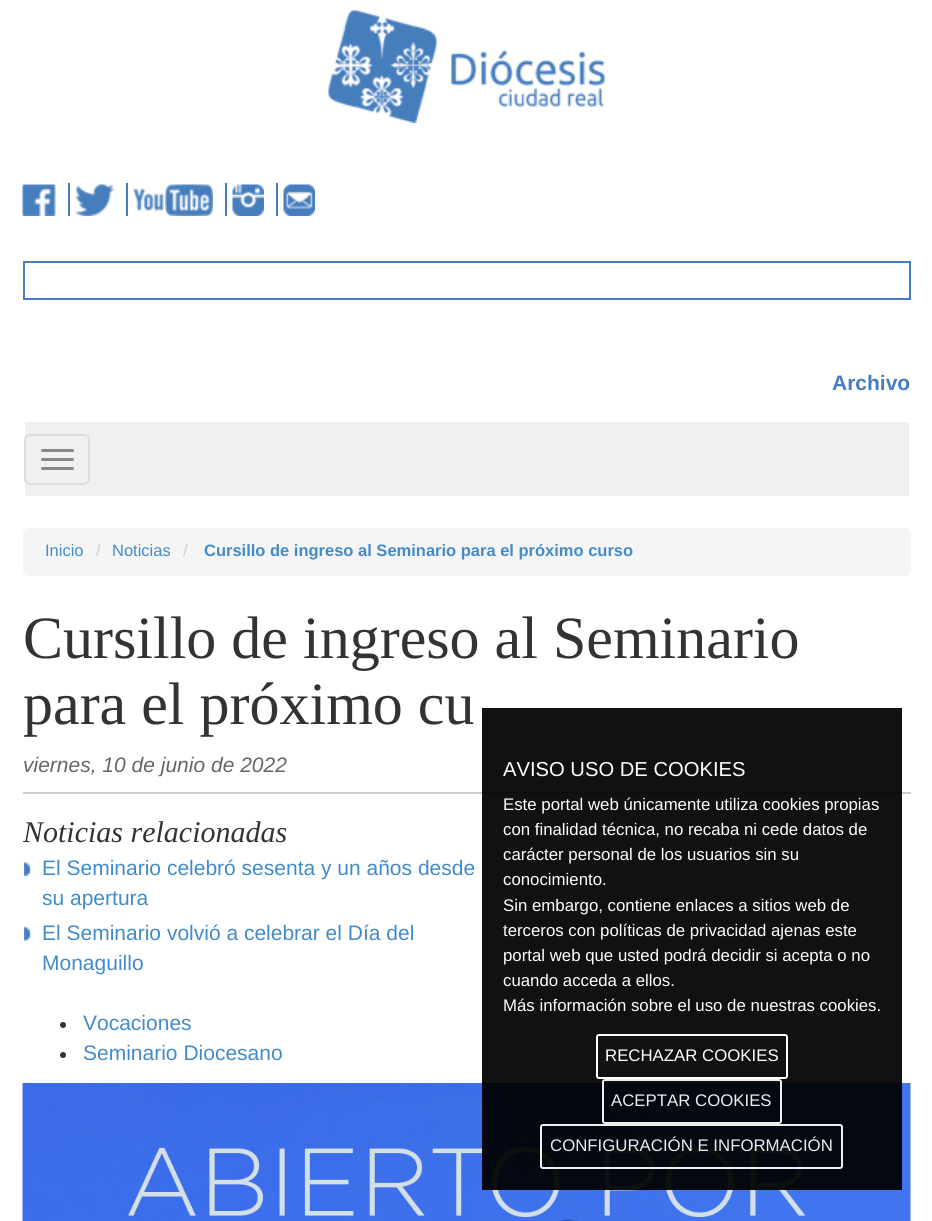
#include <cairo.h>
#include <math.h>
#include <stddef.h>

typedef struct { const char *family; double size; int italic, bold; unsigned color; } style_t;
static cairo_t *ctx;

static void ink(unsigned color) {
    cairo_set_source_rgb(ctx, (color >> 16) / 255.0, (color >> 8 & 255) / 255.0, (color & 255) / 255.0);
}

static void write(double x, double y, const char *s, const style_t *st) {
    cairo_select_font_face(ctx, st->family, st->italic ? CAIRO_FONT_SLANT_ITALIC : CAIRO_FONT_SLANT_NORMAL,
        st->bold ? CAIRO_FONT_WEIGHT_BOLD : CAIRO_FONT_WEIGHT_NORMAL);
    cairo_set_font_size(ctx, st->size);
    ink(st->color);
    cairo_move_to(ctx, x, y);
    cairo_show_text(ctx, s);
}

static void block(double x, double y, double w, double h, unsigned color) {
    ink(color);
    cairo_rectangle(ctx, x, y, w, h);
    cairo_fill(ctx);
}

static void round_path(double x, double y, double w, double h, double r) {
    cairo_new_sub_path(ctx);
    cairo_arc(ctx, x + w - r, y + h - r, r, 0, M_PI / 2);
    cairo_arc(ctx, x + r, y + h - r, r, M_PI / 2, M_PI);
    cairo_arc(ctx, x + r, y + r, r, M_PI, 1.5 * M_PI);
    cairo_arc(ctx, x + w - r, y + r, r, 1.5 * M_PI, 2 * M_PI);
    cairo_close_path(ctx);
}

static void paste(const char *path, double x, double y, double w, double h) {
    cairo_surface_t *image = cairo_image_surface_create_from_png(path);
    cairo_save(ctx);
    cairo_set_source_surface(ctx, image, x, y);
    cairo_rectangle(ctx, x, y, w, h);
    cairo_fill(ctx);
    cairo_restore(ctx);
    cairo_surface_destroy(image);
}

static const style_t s1 = {"Liberation Sans", 21, 0, 1, 0x467dbd};
static const style_t s2 = {"Liberation Sans", 16.5, 0, 0, 0x428bca};
static const style_t s3 = {"Liberation Sans", 16.5, 0, 0, 0xcccccc};
static const style_t s4 = {"Liberation Sans", 16.5, 0, 1, 0x428bca};
static const style_t s5 = {"Liberation Serif", 60, 0, 0, 0x333333};
static const style_t s6 = {"Liberation Sans", 21, 1, 0, 0x666666};
static const style_t s7 = {"Liberation Serif", 30, 1, 0, 0x333333};
static const style_t s8 = {"Liberation Sans", 21, 0, 0, 0x428bca};
static const style_t s9 = {"Liberation Sans", 20.2, 0, 0, 0xffffff};
static const style_t s10 = {"Liberation Sans", 16.8, 0, 0, 0xffffff};
static const style_t s11 = {"Liberation Sans", 16.8, 0, 0, 0xededed};

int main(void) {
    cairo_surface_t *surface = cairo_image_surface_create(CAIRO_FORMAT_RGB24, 932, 1221);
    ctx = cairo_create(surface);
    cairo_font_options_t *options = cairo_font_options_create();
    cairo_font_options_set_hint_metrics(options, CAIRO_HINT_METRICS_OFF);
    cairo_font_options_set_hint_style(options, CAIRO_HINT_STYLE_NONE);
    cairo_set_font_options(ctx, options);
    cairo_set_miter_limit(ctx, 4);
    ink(0xffffff);
    cairo_paint(ctx);
    paste("pic1.png", 328, 10, 277, 113);
    block(68, 183, 2, 33, 0x467dbd);
    paste("pic2.png", 22, 184, 34, 32);
    block(126, 183, 2, 33, 0x467dbd);
    paste("pic3.png", 75, 184, 39, 32);
    block(225, 183, 2, 33, 0x467dbd);
    paste("pic4.png", 133, 184, 80, 32);
    block(276, 183, 2, 33, 0x467dbd);
    paste("pic5.png", 232, 184, 32, 32);
    paste("pic6.png", 283, 184, 32, 32);
    cairo_rectangle(ctx, 24, 262, 886, 37);
    cairo_stroke(ctx);
    write(832, 390, "Archivo", &s1);
    block(25, 422, 884, 74, 0xf0f0f0);
    round_path(25, 435, 64, 49, 5);
    ink(0xdddddd);
    cairo_stroke(ctx);
    ink(0x888888);
    round_path(41, 449, 33, 3, 1.5);
    cairo_fill(ctx);
    round_path(41, 458, 33, 3, 1.5);
    cairo_fill(ctx);
    round_path(41, 467, 33, 3, 1.5);
    cairo_fill(ctx);
    ink(0xf5f5f5);
    round_path(23, 528, 888, 48, 6);
    cairo_fill(ctx);
    write(45, 556, "Inicio", &s2);
    write(96, 556, "/", &s3);
    write(112, 556, "Noticias", &s2);
    write(183, 556, "/", &s3);
    write(204, 556, "Cursillo de ingreso al Seminario para el próximo curso", &s4);
    write(23, 658, "Cursillo de ingreso al Seminario", &s5);
    write(23, 724, "para el próximo cu", &s5);
    block(23, 792, 888, 2, 0xcccccc);
    write(23, 772, "viernes, 10 de junio de 2022", &s6);
    write(23, 842, "Noticias relacionadas", &s7);
    paste("pic7.png", 24, 862, 7, 14);
    write(42, 875, "El Seminario celebró sesenta y un años desde", &s8);
    write(42, 905, "su apertura", &s8);
    paste("pic8.png", 24, 926, 7, 15);
    write(42, 940, "El Seminario volvió a celebrar el Día del", &s8);
    write(42, 970, "Monaguillo", &s8);
    ink(0x333333);
    cairo_new_path(ctx);
    cairo_arc(ctx, 63, 1025, 3, 0, 2 * M_PI);
    cairo_fill(ctx);
    write(83, 1030, "Vocaciones", &s8);
    ink(0x333333);
    cairo_new_path(ctx);
    cairo_arc(ctx, 63, 1055, 3, 0, 2 * M_PI);
    cairo_fill(ctx);
    write(83, 1060, "Seminario Diocesano", &s8);
    paste("pic9.png", 22, 1083, 889, 138);
    cairo_set_source_rgba(ctx, 0, 0, 0, 0.93);
    cairo_rectangle(ctx, 482, 708, 420, 482);
    cairo_fill(ctx);
    write(503, 776, "AVISO USO DE COOKIES", &s9);
    write(503, 810, "Este portal web únicamente utiliza cookies propias", &s10);
    write(503, 835, "con finalidad técnica, no recaba ni cede datos de", &s10);
    write(503, 860, "carácter personal de los usuarios sin su", &s10);
    write(503, 885, "conocimiento.", &s10);
    write(503, 911, "Sin embargo, contiene enlaces a sitios web de", &s10);
    write(503, 936, "terceros con políticas de privacidad ajenas este", &s10);
    write(503, 961, "portal web que usted podrá decidir si acepta o no", &s10);
    write(503, 986, "cuando acceda a ellos.", &s10);
    write(503, 1011, "Más información sobre el uso de nuestras cookies.", &s10);
    round_path(597, 1035, 190, 43, 2);
    cairo_stroke(ctx);
    write(605, 1061, "RECHAZAR COOKIES", &s10);
    round_path(603, 1080, 178, 43, 2);
    cairo_set_source_rgba(ctx, 1, 1, 1, 0.93);
    cairo_stroke(ctx);
    write(611, 1106, "ACEPTAR COOKIES", &s11);
    round_path(541, 1125, 301, 43, 2);
    cairo_set_source_rgba(ctx, 1, 1, 1, 0.93);
    cairo_stroke(ctx);
    write(550, 1151, "CONFIGURACIÓN E INFORMACIÓN", &s11);
    cairo_surface_write_to_png(surface, "screenshot.png");
    cairo_font_options_destroy(options);
    cairo_destroy(ctx);
    cairo_surface_destroy(surface);
    return 0;
}
